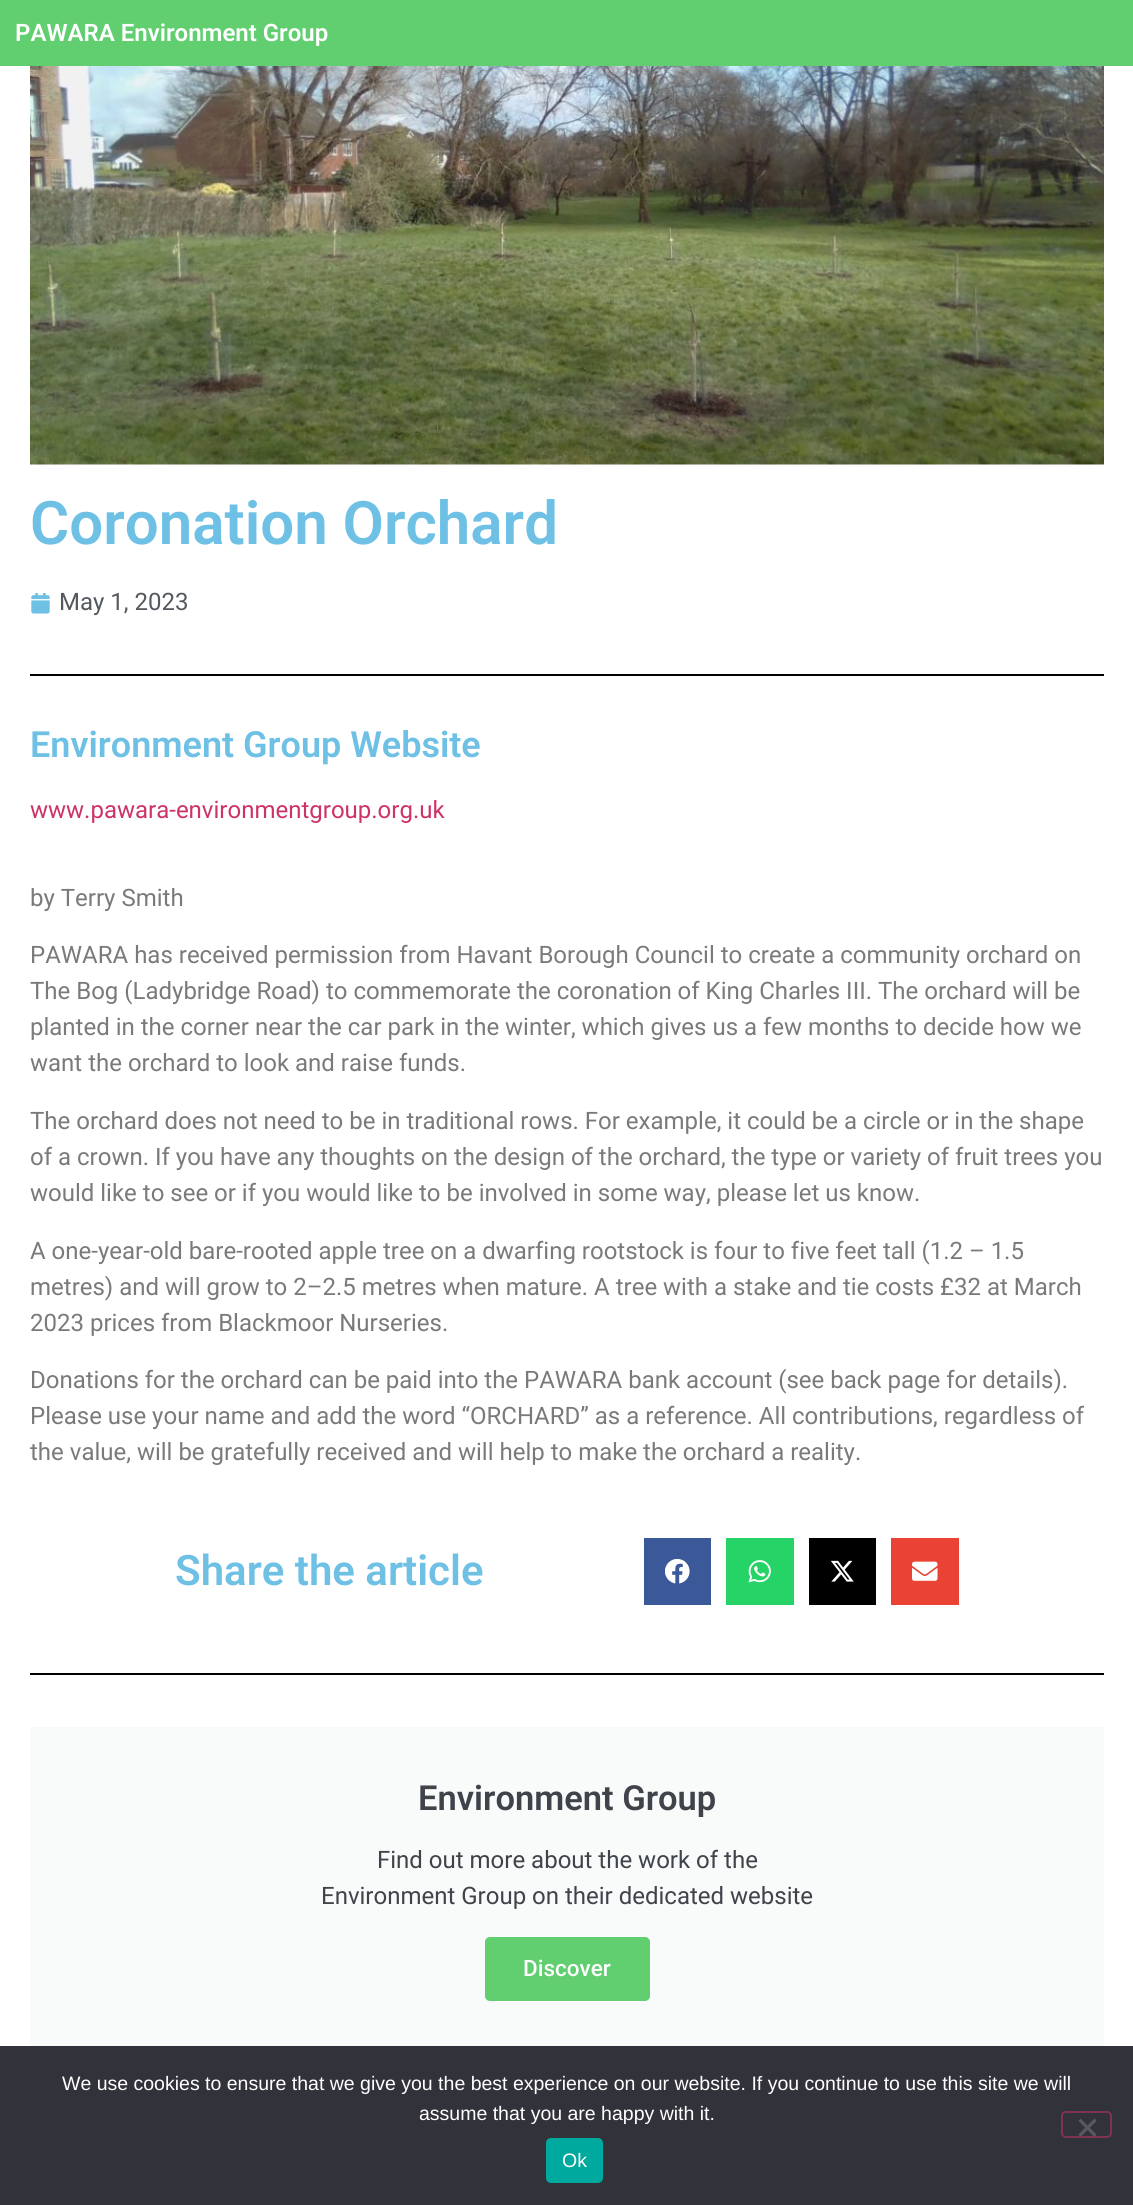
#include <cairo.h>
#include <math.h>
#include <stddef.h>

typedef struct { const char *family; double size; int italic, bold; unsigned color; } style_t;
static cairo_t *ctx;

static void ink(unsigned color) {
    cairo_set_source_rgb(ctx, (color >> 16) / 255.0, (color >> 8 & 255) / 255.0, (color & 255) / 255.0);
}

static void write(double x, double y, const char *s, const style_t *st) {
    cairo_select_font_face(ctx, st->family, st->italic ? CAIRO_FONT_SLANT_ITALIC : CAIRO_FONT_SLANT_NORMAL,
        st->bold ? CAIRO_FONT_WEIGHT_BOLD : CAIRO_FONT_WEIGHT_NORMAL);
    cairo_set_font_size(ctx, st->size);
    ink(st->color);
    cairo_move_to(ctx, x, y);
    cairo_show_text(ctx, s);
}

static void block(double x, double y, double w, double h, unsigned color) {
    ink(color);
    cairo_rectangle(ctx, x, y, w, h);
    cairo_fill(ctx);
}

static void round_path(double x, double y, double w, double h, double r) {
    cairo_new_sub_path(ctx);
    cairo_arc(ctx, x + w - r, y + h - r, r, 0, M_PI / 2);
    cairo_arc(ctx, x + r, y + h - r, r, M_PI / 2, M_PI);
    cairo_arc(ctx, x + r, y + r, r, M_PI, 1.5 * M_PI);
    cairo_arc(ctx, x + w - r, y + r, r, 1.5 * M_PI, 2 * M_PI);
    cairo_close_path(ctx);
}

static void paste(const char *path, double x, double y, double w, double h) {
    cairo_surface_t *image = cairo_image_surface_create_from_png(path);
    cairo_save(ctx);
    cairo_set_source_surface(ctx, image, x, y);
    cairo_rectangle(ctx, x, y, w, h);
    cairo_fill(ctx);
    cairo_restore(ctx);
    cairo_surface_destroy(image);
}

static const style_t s1 = {"Roboto SemiBold", 24, 0, 0, 0xffffff};
static const style_t s2 = {"Roboto SemiBold", 60, 0, 0, 0x6ec1e4};
static const style_t s3 = {"Roboto", 24, 0, 0, 0x54595f};
static const style_t s4 = {"Roboto SemiBold", 36, 0, 0, 0x6ec1e4};
static const style_t s5 = {"Roboto", 24, 0, 0, 0xcc3366};
static const style_t s6 = {"Roboto", 24, 0, 0, 0x7a7a7a};
static const style_t s7 = {"Roboto SemiBold", 42, 0, 0, 0x6ec1e4};
static const style_t s8 = {"Roboto SemiBold", 34.5, 0, 0, 0x3f444b};
static const style_t s9 = {"Roboto", 24, 0, 0, 0x3f444b};
static const style_t s10 = {"Roboto Medium", 22.5, 0, 0, 0xffffff};
static const style_t s11 = {"Liberation Sans", 19.5, 0, 0, 0xffffff};

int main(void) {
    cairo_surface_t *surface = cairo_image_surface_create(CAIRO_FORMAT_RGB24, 1133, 2205);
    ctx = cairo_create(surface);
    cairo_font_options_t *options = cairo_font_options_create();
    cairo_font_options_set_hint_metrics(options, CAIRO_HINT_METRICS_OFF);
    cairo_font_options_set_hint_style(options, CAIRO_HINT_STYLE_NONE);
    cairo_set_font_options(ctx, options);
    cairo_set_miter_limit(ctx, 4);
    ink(0xffffff);
    cairo_paint(ctx);
    block(0, 0, 1133, 66, 0x61ce70);
    write(15, 41, "PAWARA Environment Group", &s1);
    paste("pic1.png", 30, 66, 1074, 399);
    write(30, 544, "Coronation Orchard", &s2);
    paste("pic2.png", 31, 593, 19, 21);
    write(59, 610, "May 1, 2023", &s3);
    block(30, 674, 1074, 2, 0x000000);
    write(30, 757, "Environment Group Website", &s4);
    write(30, 818, "www.pawara-environmentgroup.org.uk", &s5);
    write(30, 906, "by Terry Smith", &s6);
    write(30, 963, "PAWARA has received permission from Havant Borough Council to create a community orchard on", &s6);
    write(30, 999, "The Bog (Ladybridge Road) to commemorate the coronation of King Charles III. The orchard will be", &s6);
    write(30, 1035, "planted in the corner near the car park in the winter, which gives us a few months to decide how we", &s6);
    write(30, 1071, "want the orchard to look and raise funds.", &s6);
    write(30, 1129, "The orchard does not need to be in traditional rows. For example, it could be a circle or in the shape", &s6);
    write(30, 1165, "of a crown. If you have any thoughts on the design of the orchard, the type or variety of fruit trees you", &s6);
    write(30, 1201, "would like to see or if you would like to be involved in some way, please let us know.", &s6);
    write(30, 1259, "A one-year-old bare-rooted apple tree on a dwarfing rootstock is four to five feet tall (1.2 – 1.5", &s6);
    write(30, 1295, "metres) and will grow to 2–2.5 metres when mature. A tree with a stake and tie costs £32 at March", &s6);
    write(30, 1331, "2023 prices from Blackmoor Nurseries.", &s6);
    write(30, 1388, "Donations for the orchard can be paid into the PAWARA bank account (see back page for details).", &s6);
    write(30, 1424, "Please use your name and add the word “ORCHARD” as a reference. All contributions, regardless of", &s6);
    write(30, 1460, "the value, will be gratefully received and will help to make the orchard a reality.", &s6);
    write(175, 1585, "Share the article", &s7);
    block(644, 1538, 67, 67, 0x3b5998);
    paste("pic3.png", 665, 1559, 25, 25);
    block(726, 1538, 68, 67, 0x25d366);
    paste("pic4.png", 748, 1560, 23, 23);
    block(809, 1538, 67, 67, 0x000000);
    paste("pic5.png", 831, 1560, 23, 22);
    block(891, 1538, 68, 67, 0xea4335);
    paste("pic6.png", 912, 1561, 26, 20);
    block(30, 1673, 1074, 2, 0x000000);
    block(30, 1727, 1074, 319, 0xf9fafa);
    write(418, 1810, "Environment Group", &s8);
    write(377, 1868, "Find out more about the work of the", &s9);
    write(321, 1904, "Environment Group on their dedicated website", &s9);
    ink(0x61ce70);
    round_path(485, 1937, 165, 64, 5);
    cairo_fill(ctx);
    write(523, 1976, "Discover", &s10);
    block(0, 2046, 1133, 159, 0x32323a);
    write(62, 2090, "We use cookies to ensure that we give you the best experience on our website. If you continue to use this site we will", &s11);
    write(419, 2120, "assume that you are happy with it.", &s11);
    round_path(1062, 2112, 49, 25, 4);
    ink(0x7f3350);
    cairo_stroke(ctx);
    ink(0x59595d);
    cairo_new_path(ctx);
    cairo_move_to(ctx, 1094.5, 2118.5);
    cairo_line_to(ctx, 1096.5, 2121);
    cairo_line_to(ctx, 1080.5, 2137);
    cairo_line_to(ctx, 1078.5, 2134.5);
    cairo_close_path(ctx);
    cairo_fill(ctx);
    cairo_new_path(ctx);
    cairo_move_to(ctx, 1078.5, 2121);
    cairo_line_to(ctx, 1080.5, 2118.5);
    cairo_line_to(ctx, 1096.5, 2134.5);
    cairo_line_to(ctx, 1094.5, 2137);
    cairo_close_path(ctx);
    cairo_fill(ctx);
    ink(0x00a99d);
    round_path(546, 2138, 57, 45, 5);
    cairo_fill(ctx);
    write(562, 2167, "Ok", &s11);
    cairo_surface_write_to_png(surface, "screenshot.png");
    cairo_font_options_destroy(options);
    cairo_destroy(ctx);
    cairo_surface_destroy(surface);
    return 0;
}
